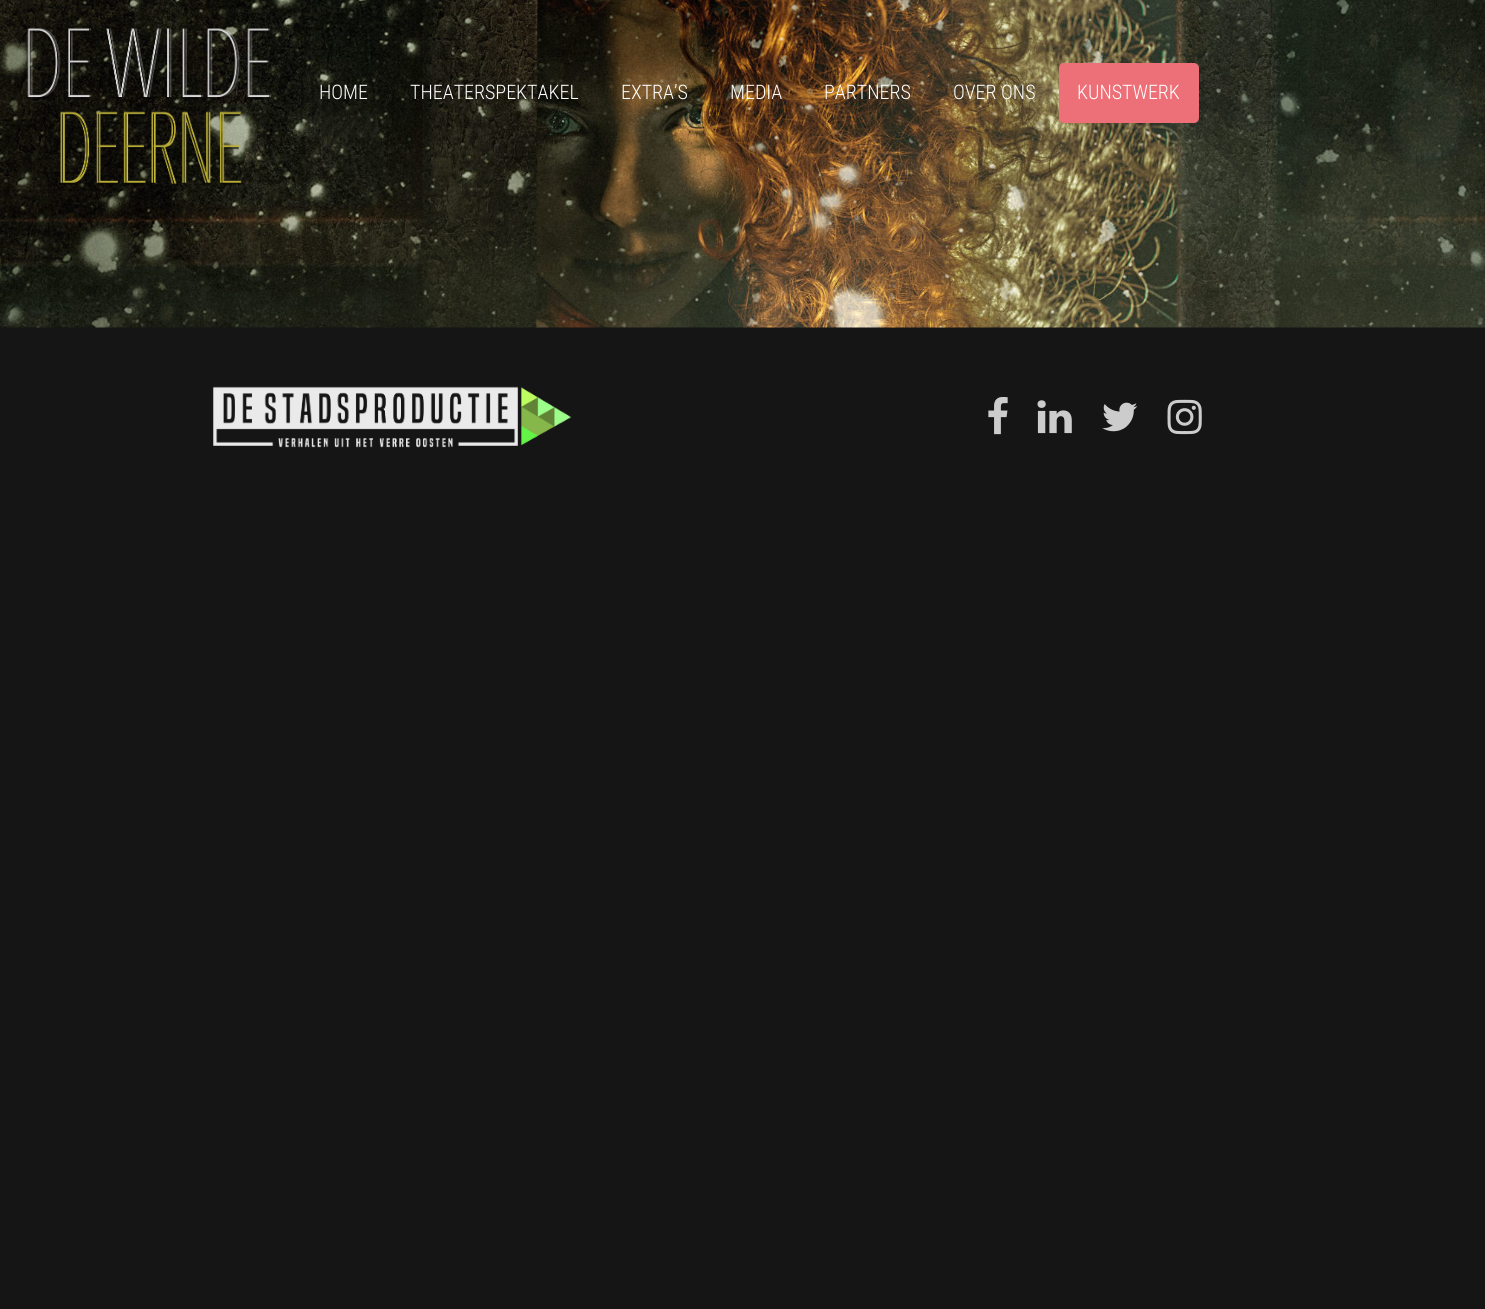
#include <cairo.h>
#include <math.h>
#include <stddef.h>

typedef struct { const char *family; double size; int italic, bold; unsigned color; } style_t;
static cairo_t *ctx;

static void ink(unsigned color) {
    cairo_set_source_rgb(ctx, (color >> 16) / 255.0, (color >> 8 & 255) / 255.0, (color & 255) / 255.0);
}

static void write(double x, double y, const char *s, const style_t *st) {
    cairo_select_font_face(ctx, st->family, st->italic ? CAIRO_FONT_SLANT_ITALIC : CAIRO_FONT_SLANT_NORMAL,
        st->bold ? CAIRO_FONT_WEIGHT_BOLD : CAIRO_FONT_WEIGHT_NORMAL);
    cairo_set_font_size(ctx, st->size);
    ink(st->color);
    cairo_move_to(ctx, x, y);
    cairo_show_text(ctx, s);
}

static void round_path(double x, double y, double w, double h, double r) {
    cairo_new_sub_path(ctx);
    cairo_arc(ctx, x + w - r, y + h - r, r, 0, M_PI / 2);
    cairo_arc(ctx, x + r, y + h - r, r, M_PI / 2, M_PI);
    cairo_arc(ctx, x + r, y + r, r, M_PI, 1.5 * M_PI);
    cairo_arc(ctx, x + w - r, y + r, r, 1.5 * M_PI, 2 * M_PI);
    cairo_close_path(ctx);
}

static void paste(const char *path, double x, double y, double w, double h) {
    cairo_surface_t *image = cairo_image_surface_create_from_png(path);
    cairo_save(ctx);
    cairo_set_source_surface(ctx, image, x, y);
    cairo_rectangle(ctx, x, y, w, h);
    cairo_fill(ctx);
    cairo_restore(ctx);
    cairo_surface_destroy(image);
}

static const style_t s1 = {"Roboto Condensed Light", 20, 0, 0, 0xffffff};

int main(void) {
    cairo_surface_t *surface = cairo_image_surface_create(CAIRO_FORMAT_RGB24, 1485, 1309);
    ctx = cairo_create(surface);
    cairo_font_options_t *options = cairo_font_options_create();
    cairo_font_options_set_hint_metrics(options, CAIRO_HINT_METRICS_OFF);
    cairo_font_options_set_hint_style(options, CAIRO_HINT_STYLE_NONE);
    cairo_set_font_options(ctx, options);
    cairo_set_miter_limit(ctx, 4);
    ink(0x151515);
    cairo_paint(ctx);
    paste("pic1.png", 0, 0, 1485, 328);
    paste("pic2.png", 26, 28, 245, 158);
    write(319, 99, "HOME", &s1);
    write(410, 99, "THEATERSPEKTAKEL", &s1);
    write(621, 99, "EXTRA’S", &s1);
    write(730, 99, "MEDIA", &s1);
    write(824, 99, "PARTNERS", &s1);
    write(953, 99, "OVER ONS", &s1);
    ink(0xed6f77);
    round_path(1059, 63, 140, 60, 5);
    cairo_fill(ctx);
    write(1077, 99, "KUNSTWERK", &s1);
    paste("pic3.png", 213, 386, 359, 62);
    paste("pic4.png", 988, 397, 20, 38);
    paste("pic5.png", 1037, 400, 35, 34);
    paste("pic6.png", 1102, 402, 36, 30);
    paste("pic7.png", 1167, 399, 35, 36);
    cairo_surface_write_to_png(surface, "screenshot.png");
    cairo_font_options_destroy(options);
    cairo_destroy(ctx);
    cairo_surface_destroy(surface);
    return 0;
}
